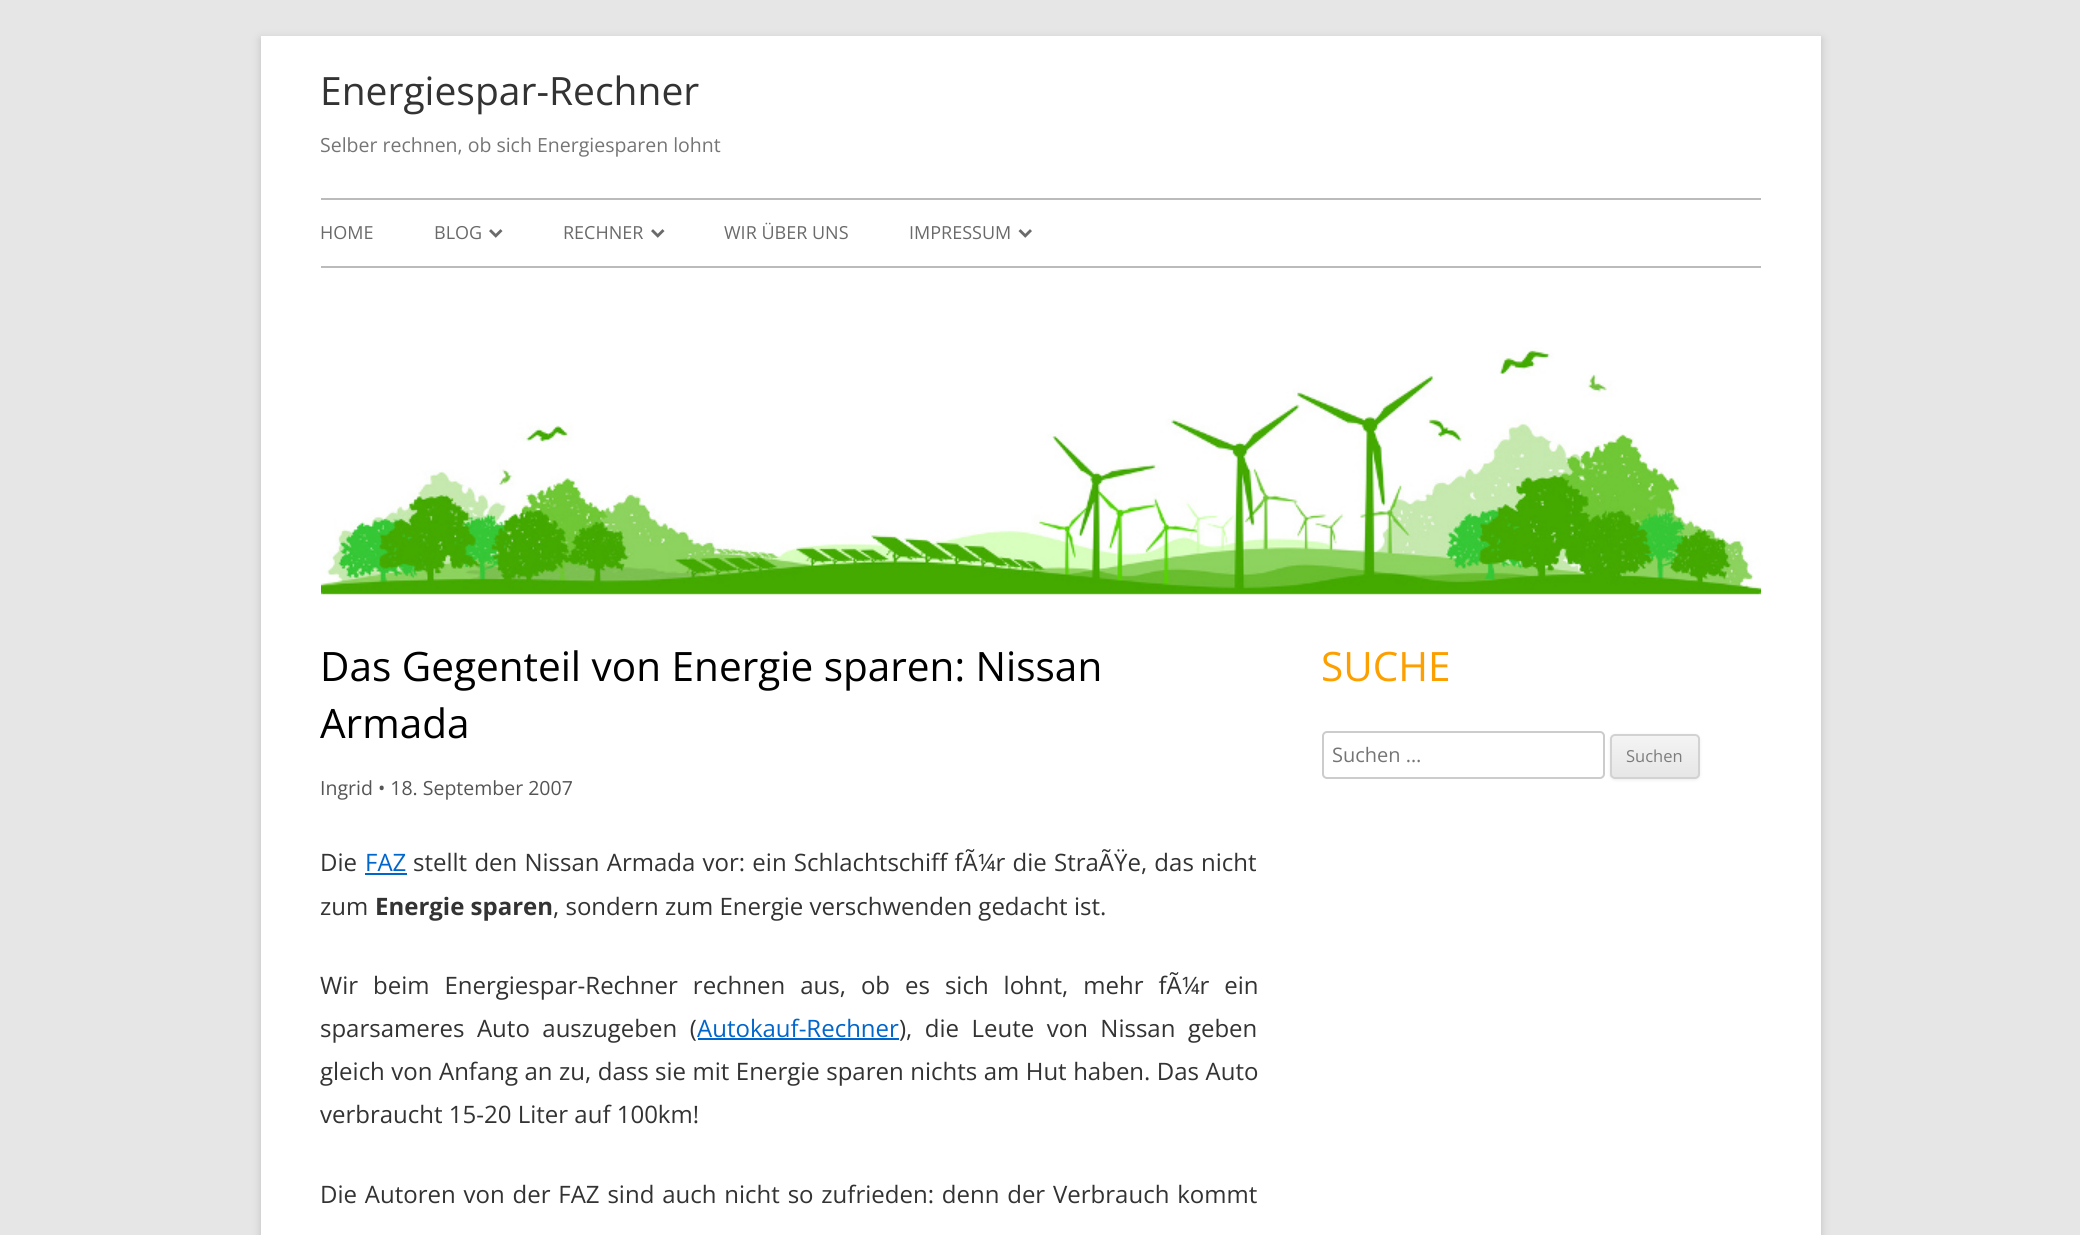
#include <cairo.h>
#include <math.h>
#include <stddef.h>

typedef struct { const char *family; double size; int italic, bold; unsigned color; } style_t;
static cairo_t *ctx;

static void ink(unsigned color) {
    cairo_set_source_rgb(ctx, (color >> 16) / 255.0, (color >> 8 & 255) / 255.0, (color & 255) / 255.0);
}

static void write(double x, double y, const char *s, const style_t *st) {
    cairo_select_font_face(ctx, st->family, st->italic ? CAIRO_FONT_SLANT_ITALIC : CAIRO_FONT_SLANT_NORMAL,
        st->bold ? CAIRO_FONT_WEIGHT_BOLD : CAIRO_FONT_WEIGHT_NORMAL);
    cairo_set_font_size(ctx, st->size);
    ink(st->color);
    cairo_move_to(ctx, x, y);
    cairo_show_text(ctx, s);
}

static void write_spaced(double x, double y, const char *s, double letter, double word) {
    cairo_move_to(ctx, x, y);
    while (*s) {
        char ch[5] = {0};
        int n = 0;
        do ch[n++] = *s++; while ((*s & 0xC0) == 0x80);
        cairo_show_text(ctx, ch);
        cairo_rel_move_to(ctx, letter + word * (*ch == ' '), 0);
    }
}

static void block(double x, double y, double w, double h, unsigned color) {
    ink(color);
    cairo_rectangle(ctx, x, y, w, h);
    cairo_fill(ctx);
}

static void round_path(double x, double y, double w, double h, double r) {
    cairo_new_sub_path(ctx);
    cairo_arc(ctx, x + w - r, y + h - r, r, 0, M_PI / 2);
    cairo_arc(ctx, x + r, y + h - r, r, M_PI / 2, M_PI);
    cairo_arc(ctx, x + r, y + r, r, M_PI, 1.5 * M_PI);
    cairo_arc(ctx, x + w - r, y + r, r, 1.5 * M_PI, 2 * M_PI);
    cairo_close_path(ctx);
}

static void blur_box(double x, double y, double w, double h, double r, double blur, double alpha) {
    cairo_push_group_with_content(ctx, CAIRO_CONTENT_ALPHA);
    cairo_set_operator(ctx, CAIRO_OPERATOR_SOURCE);
    for (int i = 15; i >= -15 && fmin(w, h) + blur * i / 3 > 0; i -= 2) {
        double e = blur * i / 6;
        cairo_set_source_rgba(ctx, 0, 0, 0, alpha * erfc((i - 1) / 8.5) / 2);
        round_path(x - e, y - e, w + 2 * e, h + 2 * e, fmax(0, fmin(r + e + blur * .6, fmin(w, h) / 2 + e)));
        cairo_fill(ctx);
    }
    cairo_pattern_t *soft = cairo_pop_group(ctx);
    cairo_mask(ctx, soft);
    cairo_pattern_destroy(soft);
}

static void paste(const char *path, double x, double y, double w, double h) {
    cairo_surface_t *image = cairo_image_surface_create_from_png(path);
    cairo_save(ctx);
    cairo_set_source_surface(ctx, image, x, y);
    cairo_rectangle(ctx, x, y, w, h);
    cairo_fill(ctx);
    cairo_restore(ctx);
    cairo_surface_destroy(image);
}

static const style_t s1 = {"Open Sans", 39, 0, 0, 0x333333};
static const style_t s2 = {"Open Sans", 19.5, 0, 0, 0x757575};
static const style_t s3 = {"Open Sans", 18, 0, 0, 0x6a6a6a};
static const style_t s4 = {"Open Sans", 40.5, 0, 0, 0x000000};
static const style_t s5 = {"Open Sans", 19.5, 0, 0, 0x555555};
static const style_t s6 = {"Open Sans", 24, 0, 0, 0x333333};
static const style_t s7 = {"Open Sans", 24, 0, 0, 0x0066cc};
static const style_t s8 = {"Open Sans", 24, 0, 1, 0x333333};
static const style_t s9 = {"Open Sans", 40.5, 0, 0, 0xfc9f00};
static const style_t s10 = {"Open Sans", 20, 0, 0, 0x757575};
static const style_t s11 = {"Open Sans", 16.5, 0, 0, 0x7c7c7c};

int main(void) {
    cairo_surface_t *surface = cairo_image_surface_create(CAIRO_FORMAT_RGB24, 2080, 1235);
    ctx = cairo_create(surface);
    cairo_font_options_t *options = cairo_font_options_create();
    cairo_font_options_set_hint_metrics(options, CAIRO_HINT_METRICS_OFF);
    cairo_font_options_set_hint_style(options, CAIRO_HINT_STYLE_NONE);
    cairo_set_font_options(ctx, options);
    cairo_set_miter_limit(ctx, 4);
    cairo_pattern_t *gradient;
    ink(0xe6e6e6);
    cairo_paint(ctx);
    ink(0x646464);
    blur_box(261, 39, 1560, 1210, 0, 4.5, 0.3);
    block(261, 36, 1560, 1199, 0xffffff);
    write(320, 105, "Energiespar-Rechner", &s1);
    write(320, 152, "Selber rechnen, ob sich Energiesparen lohnt", &s2);
    block(321, 198, 1440, 2, 0xbbbbbb);
    block(321, 266, 1440, 2, 0xbbbbbb);
    write(320, 239, "HOME", &s3);
    write(434, 239, "BLOG", &s3);
    paste("pic1.png", 489, 229, 14, 9);
    write(563, 239, "RECHNER", &s3);
    paste("pic1.png", 651, 229, 14, 9);
    write(724, 239, "WIR ÜBER UNS", &s3);
    write(909, 239, "IMPRESSUM", &s3);
    paste("pic2.png", 1018, 229, 14, 9);
    paste("pic3.png", 321, 347, 1440, 248);
    write(320, 681, "Das Gegenteil von Energie sparen: Nissan", &s4);
    write(320, 738, "Armada", &s4);
    write(320, 795, "Ingrid • 18. September 2007", &s5);
    write(320, 871, "Die", &s6);
    write(365, 871, "FAZ", &s7);
    block(365, 873, 42, 2, 0x0066cc);
    ink(0x333333);
    write_spaced(413, 871, "stellt den Nissan Armada vor: ein Schlachtschiff fÃ¼r die StraÃŸe, das nicht", 0, 1);
    write(320, 915, "zum", &s6);
    write(375, 915, "Energie sparen", &s8);
    write(553, 915, ", sondern zum Energie verschwenden gedacht ist.", &s6);
    write_spaced(320, 994, "Wir beim Energiespar-Rechner rechnen aus, ob es sich lohnt, mehr fÃ¼r ein", 0, 8.75);
    write_spaced(320, 1037, "sparsameres Auto auszugeben (", 0, 6.25);
    write(697, 1037, "Autokauf-Rechner", &s7);
    block(698, 1038, 201, 2, 0x0066cc);
    ink(0x333333);
    write_spaced(899, 1037, "), die Leute von Nissan geben", 0, 6.25);
    write_spaced(320, 1080, "gleich von Anfang an zu, dass sie mit Energie sparen nichts am Hut haben. Das Auto", 0, 0.25);
    write(320, 1123, "verbraucht 15-20 Liter auf 100km!", &s6);
    write_spaced(320, 1203, "Die Autoren von der FAZ sind auch nicht so zufrieden: denn der Verbrauch kommt", 0, 1.6);
    write(1321, 681, "SUCHE", &s9);
    round_path(1323, 732, 281, 46, 4);
    ink(0xcccccc);
    cairo_stroke(ctx);
    write(1332, 762, "Suchen …", &s10);
    ink(0x404040);
    blur_box(1610, 735, 90, 45, 5, 1.5, 0.1);
    cairo_save(ctx);
    round_path(1610, 734, 90, 45, 5);
    cairo_clip(ctx);
    gradient = cairo_pattern_create_linear(1655, 735, 1655, 777);
    cairo_pattern_add_color_stop_rgba(gradient, 0, 0.957, 0.957, 0.957, 1);
    cairo_pattern_add_color_stop_rgba(gradient, 1, 0.902, 0.902, 0.902, 1);
    cairo_set_source(ctx, gradient);
    cairo_pattern_destroy(gradient);
    cairo_rectangle(ctx, 1610, 735, 90, 42);
    cairo_fill(ctx);
    cairo_restore(ctx);
    round_path(1611, 735, 88, 43, 4);
    ink(0xd2d2d2);
    cairo_stroke(ctx);
    write(1626, 762, "Suchen", &s11);
    cairo_surface_write_to_png(surface, "screenshot.png");
    cairo_font_options_destroy(options);
    cairo_destroy(ctx);
    cairo_surface_destroy(surface);
    return 0;
}
